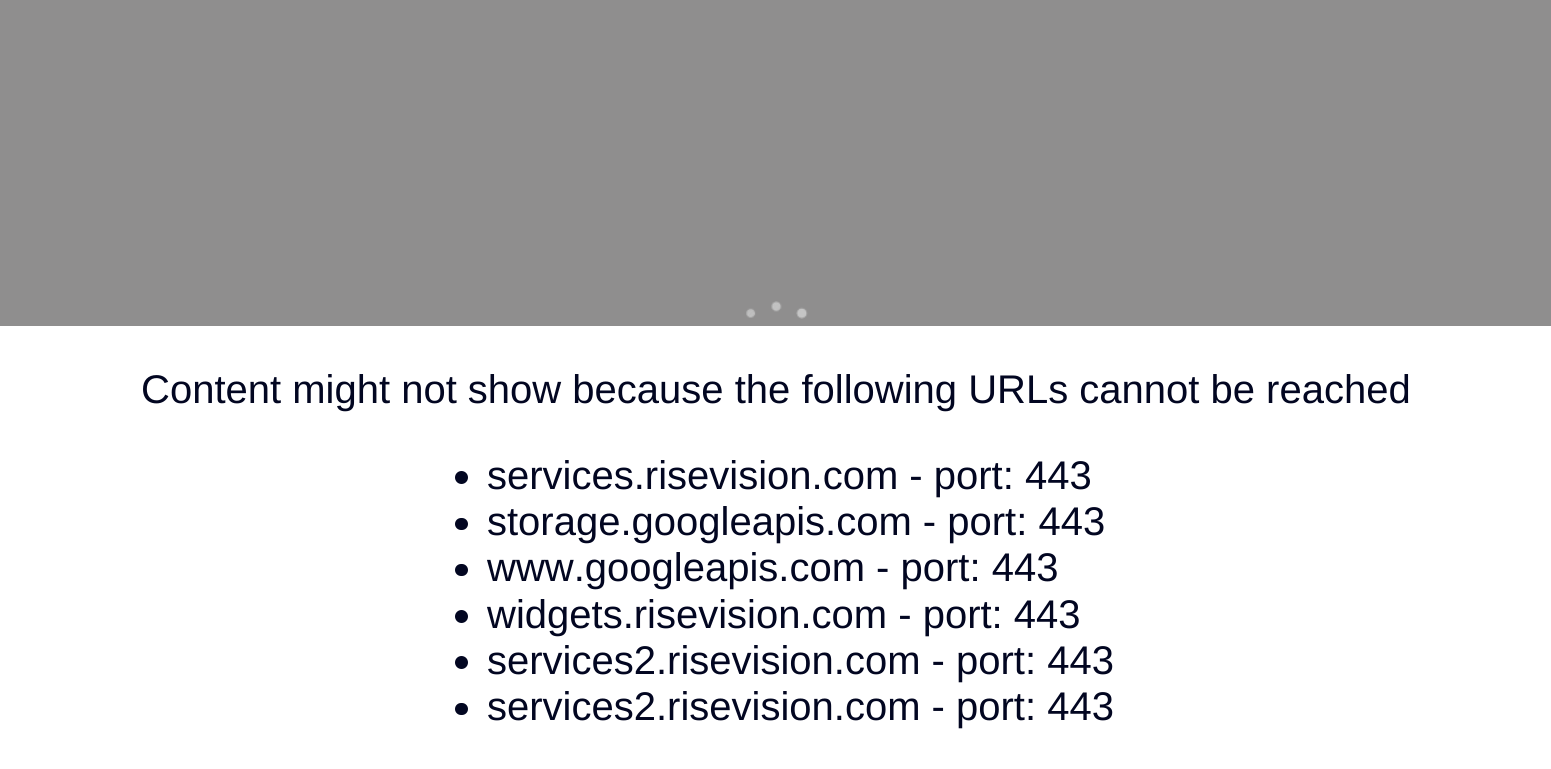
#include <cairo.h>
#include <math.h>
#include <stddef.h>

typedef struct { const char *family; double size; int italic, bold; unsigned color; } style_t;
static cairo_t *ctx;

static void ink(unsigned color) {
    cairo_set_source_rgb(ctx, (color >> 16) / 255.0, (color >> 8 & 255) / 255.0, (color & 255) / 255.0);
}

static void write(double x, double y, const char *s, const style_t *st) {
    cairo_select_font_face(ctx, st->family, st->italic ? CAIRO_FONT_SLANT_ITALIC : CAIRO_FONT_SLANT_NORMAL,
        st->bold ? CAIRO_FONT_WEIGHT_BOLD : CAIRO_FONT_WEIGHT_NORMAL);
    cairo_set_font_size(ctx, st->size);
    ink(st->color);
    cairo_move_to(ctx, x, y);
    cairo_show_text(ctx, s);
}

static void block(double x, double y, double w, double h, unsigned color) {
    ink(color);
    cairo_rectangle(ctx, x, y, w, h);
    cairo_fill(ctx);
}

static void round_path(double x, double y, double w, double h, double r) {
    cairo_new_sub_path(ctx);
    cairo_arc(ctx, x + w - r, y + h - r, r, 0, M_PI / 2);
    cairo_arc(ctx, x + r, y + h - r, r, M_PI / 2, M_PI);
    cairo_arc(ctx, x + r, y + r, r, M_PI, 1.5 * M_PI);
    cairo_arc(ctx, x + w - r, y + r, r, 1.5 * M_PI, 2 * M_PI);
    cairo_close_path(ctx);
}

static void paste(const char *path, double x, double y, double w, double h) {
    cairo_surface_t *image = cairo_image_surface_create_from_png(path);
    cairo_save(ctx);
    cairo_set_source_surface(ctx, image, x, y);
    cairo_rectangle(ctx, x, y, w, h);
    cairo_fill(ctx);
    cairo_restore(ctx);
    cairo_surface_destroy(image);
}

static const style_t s1 = {"Liberation Sans", 40, 0, 0, 0x020621};

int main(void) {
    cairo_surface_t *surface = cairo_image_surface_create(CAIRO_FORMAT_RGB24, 1551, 769);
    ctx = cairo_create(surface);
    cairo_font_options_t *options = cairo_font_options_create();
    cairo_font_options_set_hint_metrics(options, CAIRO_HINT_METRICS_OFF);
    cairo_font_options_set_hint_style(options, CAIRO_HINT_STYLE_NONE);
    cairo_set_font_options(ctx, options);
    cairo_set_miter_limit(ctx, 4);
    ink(0x8f8e8e);
    cairo_paint(ctx);
    paste("pic1.png", 746, 301, 62, 18);
    block(0, 326, 1551, 443, 0xffffff);
    write(141, 403, "Content might not show because the following URLs cannot be reached", &s1);
    cairo_new_path(ctx);
    cairo_arc(ctx, 461.5, 477.5, 6.5, 0, 2 * M_PI);
    cairo_fill(ctx);
    write(487, 489, "services.risevision.com - port: 443", &s1);
    round_path(455, 518, 13, 12, 6);
    cairo_fill(ctx);
    write(487, 535, "storage.googleapis.com - port: 443", &s1);
    round_path(455, 564, 13, 12, 6);
    cairo_fill(ctx);
    write(487, 581, "www.googleapis.com - port: 443", &s1);
    cairo_new_path(ctx);
    cairo_arc(ctx, 461.5, 616.5, 6.5, 0, 2 * M_PI);
    cairo_fill(ctx);
    write(487, 628, "widgets.risevision.com - port: 443", &s1);
    cairo_new_path(ctx);
    cairo_arc(ctx, 461.5, 662.5, 6.5, 0, 2 * M_PI);
    cairo_fill(ctx);
    write(487, 674, "services2.risevision.com - port: 443", &s1);
    round_path(455, 703, 13, 12, 6);
    cairo_fill(ctx);
    write(487, 720, "services2.risevision.com - port: 443", &s1);
    cairo_surface_write_to_png(surface, "screenshot.png");
    cairo_font_options_destroy(options);
    cairo_destroy(ctx);
    cairo_surface_destroy(surface);
    return 0;
}
